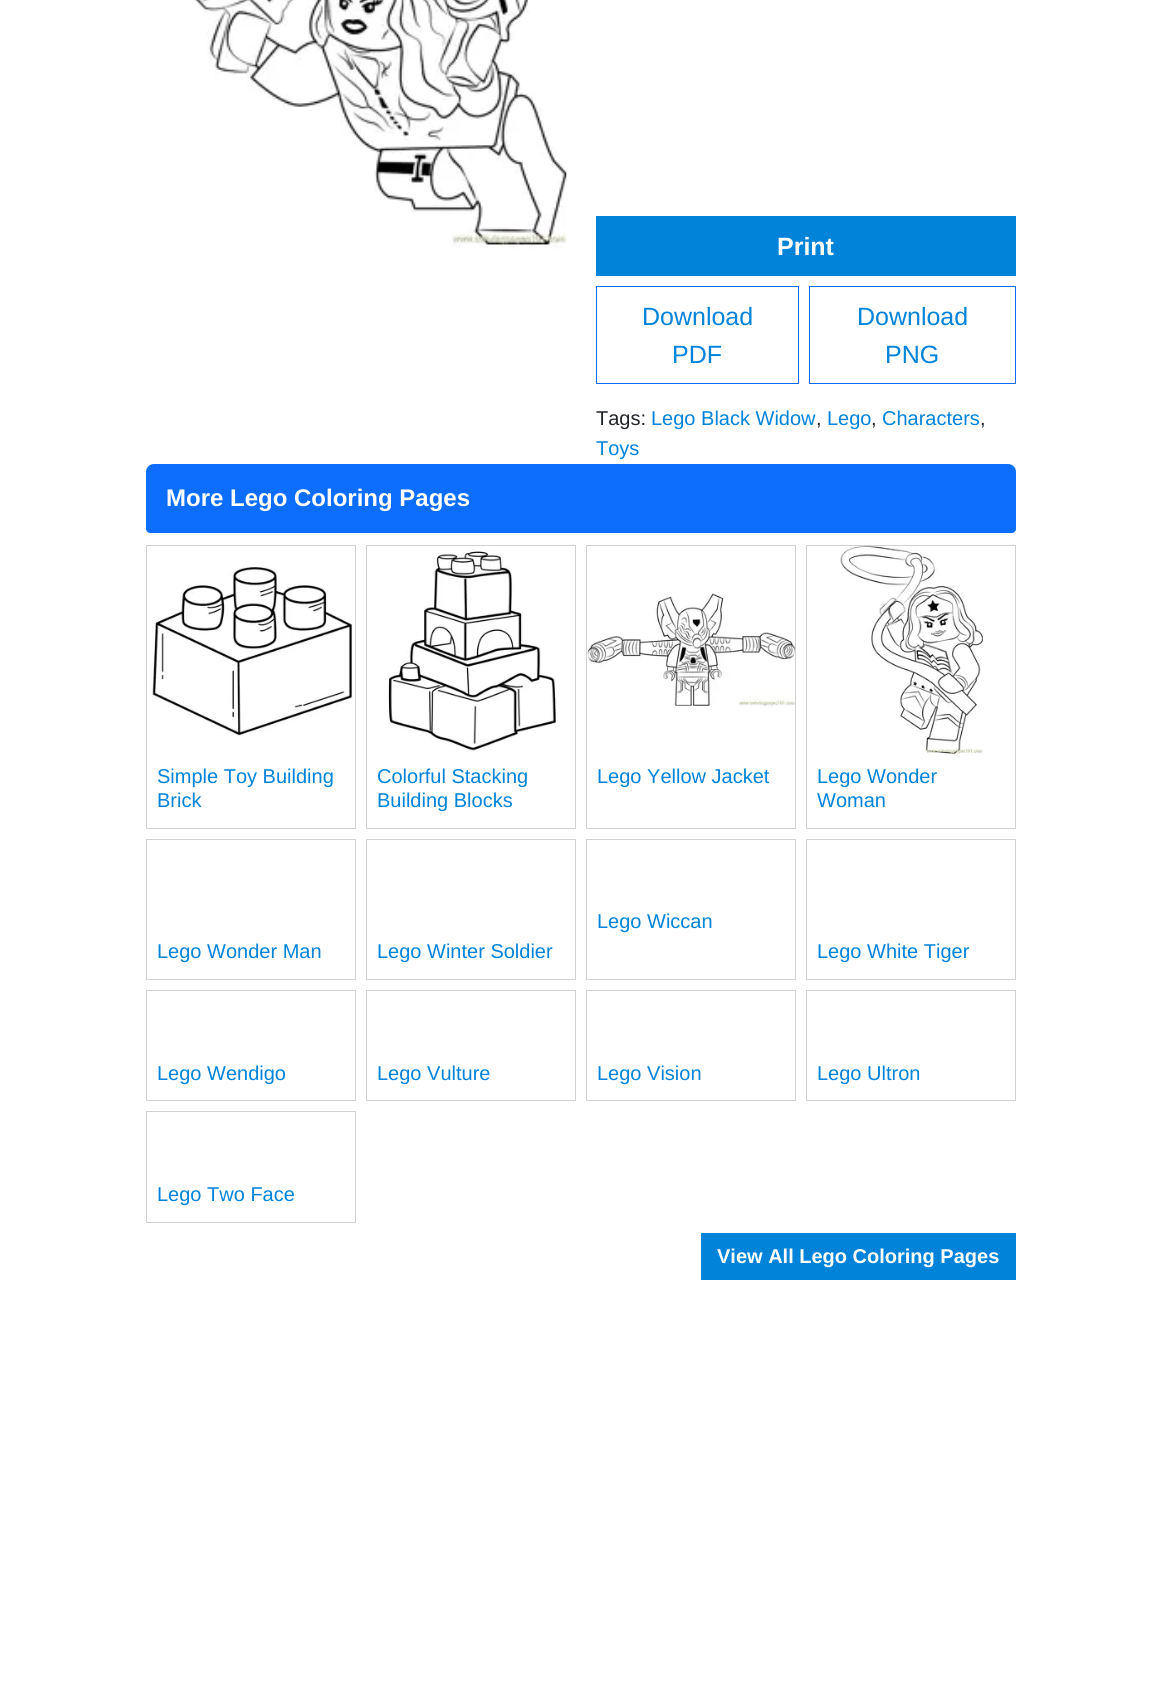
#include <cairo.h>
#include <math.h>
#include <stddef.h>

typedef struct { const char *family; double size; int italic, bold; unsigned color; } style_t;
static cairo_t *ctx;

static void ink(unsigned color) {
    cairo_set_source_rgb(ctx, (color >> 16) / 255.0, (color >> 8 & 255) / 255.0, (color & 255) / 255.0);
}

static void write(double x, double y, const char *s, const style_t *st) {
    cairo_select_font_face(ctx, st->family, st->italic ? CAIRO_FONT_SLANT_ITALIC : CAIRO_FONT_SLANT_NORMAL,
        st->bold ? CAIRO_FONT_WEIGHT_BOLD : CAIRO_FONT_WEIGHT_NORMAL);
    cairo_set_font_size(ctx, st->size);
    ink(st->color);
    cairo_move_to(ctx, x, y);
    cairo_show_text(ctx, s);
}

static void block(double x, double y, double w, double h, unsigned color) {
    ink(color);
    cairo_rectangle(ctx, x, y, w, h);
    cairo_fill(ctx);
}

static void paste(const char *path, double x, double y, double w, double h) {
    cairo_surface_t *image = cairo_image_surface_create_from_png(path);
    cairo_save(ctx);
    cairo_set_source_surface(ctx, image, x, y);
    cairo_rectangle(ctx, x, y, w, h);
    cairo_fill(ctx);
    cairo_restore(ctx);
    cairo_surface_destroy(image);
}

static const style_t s1 = {"Liberation Sans", 25, 0, 1, 0xffffff};
static const style_t s2 = {"Liberation Sans", 25, 0, 0, 0x0083d8};
static const style_t s3 = {"Liberation Sans", 20, 0, 0, 0x212529};
static const style_t s4 = {"Liberation Sans", 20, 0, 0, 0x0083d8};
static const style_t s5 = {"Liberation Sans", 24, 0, 1, 0xffffff};
static const style_t s6 = {"Liberation Sans", 20, 0, 1, 0xffffff};

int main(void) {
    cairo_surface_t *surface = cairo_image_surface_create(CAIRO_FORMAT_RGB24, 1161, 1700);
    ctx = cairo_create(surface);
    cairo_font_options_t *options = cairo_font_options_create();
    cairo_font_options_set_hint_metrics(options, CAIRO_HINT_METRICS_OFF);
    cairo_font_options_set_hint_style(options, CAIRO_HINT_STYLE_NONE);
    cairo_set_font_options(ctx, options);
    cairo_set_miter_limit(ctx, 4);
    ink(0xffffff);
    cairo_paint(ctx);
    paste("pic1.png", 194, 0, 373, 249);
    block(596, 216, 420, 60, 0x0083d8);
    write(777, 255, "Print", &s1);
    cairo_rectangle(ctx, 596.5, 286.5, 202, 97);
    ink(0x0d6efd);
    cairo_set_line_width(ctx, 1);
    cairo_stroke(ctx);
    write(642, 325, "Download", &s2);
    write(672, 363, "PDF", &s2);
    cairo_rectangle(ctx, 809.5, 286.5, 206, 97);
    ink(0x0d6efd);
    cairo_stroke(ctx);
    write(857, 325, "Download", &s2);
    write(885, 363, "PNG", &s2);
    write(596, 425, "Tags:", &s3);
    write(651, 425, "Lego Black Widow", &s4);
    write(816, 425, ",", &s3);
    write(827, 425, "Lego", &s4);
    write(871, 425, ",", &s3);
    write(882, 425, "Characters", &s4);
    write(980, 425, ",", &s3);
    write(596, 455, "Toys", &s4);
    ink(0x0d6efd);
    cairo_new_path(ctx);
    cairo_move_to(ctx, 154, 464);
    cairo_line_to(ctx, 1008, 464);
    cairo_curve_to(ctx, 1012.5, 464, 1016, 467.5, 1016, 472);
    cairo_line_to(ctx, 1016, 529);
    cairo_curve_to(ctx, 1016, 531, 1014, 533, 1012, 533);
    cairo_line_to(ctx, 150, 533);
    cairo_curve_to(ctx, 148, 533, 146, 531, 146, 529);
    cairo_line_to(ctx, 146, 472);
    cairo_curve_to(ctx, 146, 467.5, 149.5, 464, 154, 464);
    cairo_close_path(ctx);
    cairo_fill(ctx);
    write(166, 506, "More Lego Coloring Pages", &s5);
    cairo_rectangle(ctx, 146.5, 545.5, 209, 283);
    ink(0xd2d2d2);
    cairo_stroke(ctx);
    paste("pic2.png", 151, 566, 202, 170);
    write(157, 783, "Simple Toy Building", &s4);
    write(157, 807, "Brick", &s4);
    cairo_rectangle(ctx, 366.5, 545.5, 209, 283);
    ink(0xd2d2d2);
    cairo_stroke(ctx);
    paste("pic3.png", 388, 549, 169, 203);
    write(377, 783, "Colorful Stacking", &s4);
    write(377, 807, "Building Blocks", &s4);
    cairo_rectangle(ctx, 586.5, 545.5, 209, 283);
    ink(0xd2d2d2);
    cairo_stroke(ctx);
    paste("pic4.png", 587, 593, 208, 113);
    write(597, 783, "Lego Yellow Jacket", &s4);
    cairo_rectangle(ctx, 806.5, 545.5, 209, 283);
    ink(0xd2d2d2);
    cairo_stroke(ctx);
    paste("pic5.png", 840, 546, 144, 208);
    write(817, 783, "Lego Wonder", &s4);
    write(817, 807, "Woman", &s4);
    cairo_rectangle(ctx, 586.5, 839.5, 209, 140);
    ink(0xd2d2d2);
    cairo_stroke(ctx);
    write(597, 928, "Lego Wiccan", &s4);
    cairo_rectangle(ctx, 146.5, 839.5, 209, 140);
    ink(0xd2d2d2);
    cairo_stroke(ctx);
    write(157, 958, "Lego Wonder Man", &s4);
    cairo_rectangle(ctx, 366.5, 839.5, 209, 140);
    ink(0xd2d2d2);
    cairo_stroke(ctx);
    write(377, 958, "Lego Winter Soldier", &s4);
    cairo_rectangle(ctx, 806.5, 839.5, 209, 140);
    ink(0xd2d2d2);
    cairo_stroke(ctx);
    write(817, 958, "Lego White Tiger", &s4);
    cairo_rectangle(ctx, 146.5, 990.5, 209, 110);
    ink(0xd2d2d2);
    cairo_stroke(ctx);
    write(157, 1080, "Lego Wendigo", &s4);
    cairo_rectangle(ctx, 366.5, 990.5, 209, 110);
    ink(0xd2d2d2);
    cairo_stroke(ctx);
    write(377, 1080, "Lego Vulture", &s4);
    cairo_rectangle(ctx, 586.5, 990.5, 209, 110);
    ink(0xd2d2d2);
    cairo_stroke(ctx);
    write(597, 1080, "Lego Vision", &s4);
    cairo_rectangle(ctx, 806.5, 990.5, 209, 110);
    ink(0xd2d2d2);
    cairo_stroke(ctx);
    write(817, 1080, "Lego Ultron", &s4);
    cairo_rectangle(ctx, 146.5, 1111.5, 209, 111);
    ink(0xd2d2d2);
    cairo_stroke(ctx);
    write(157, 1201, "Lego Two Face", &s4);
    block(701, 1233, 315, 47, 0x0083d8);
    write(717, 1263, "View All Lego Coloring Pages", &s6);
    cairo_surface_write_to_png(surface, "screenshot.png");
    cairo_font_options_destroy(options);
    cairo_destroy(ctx);
    cairo_surface_destroy(surface);
    return 0;
}
